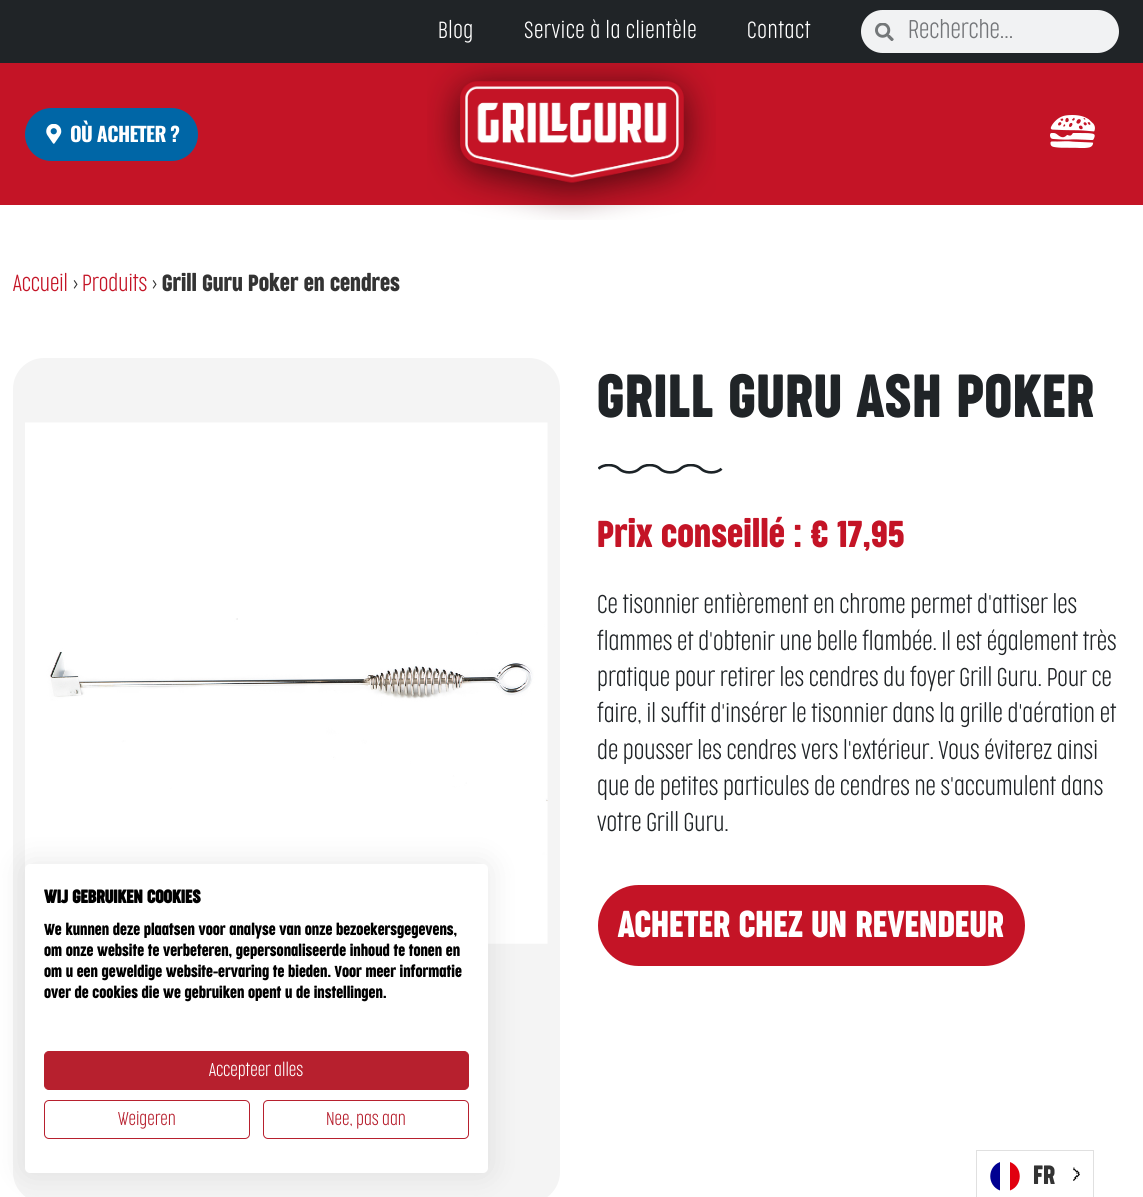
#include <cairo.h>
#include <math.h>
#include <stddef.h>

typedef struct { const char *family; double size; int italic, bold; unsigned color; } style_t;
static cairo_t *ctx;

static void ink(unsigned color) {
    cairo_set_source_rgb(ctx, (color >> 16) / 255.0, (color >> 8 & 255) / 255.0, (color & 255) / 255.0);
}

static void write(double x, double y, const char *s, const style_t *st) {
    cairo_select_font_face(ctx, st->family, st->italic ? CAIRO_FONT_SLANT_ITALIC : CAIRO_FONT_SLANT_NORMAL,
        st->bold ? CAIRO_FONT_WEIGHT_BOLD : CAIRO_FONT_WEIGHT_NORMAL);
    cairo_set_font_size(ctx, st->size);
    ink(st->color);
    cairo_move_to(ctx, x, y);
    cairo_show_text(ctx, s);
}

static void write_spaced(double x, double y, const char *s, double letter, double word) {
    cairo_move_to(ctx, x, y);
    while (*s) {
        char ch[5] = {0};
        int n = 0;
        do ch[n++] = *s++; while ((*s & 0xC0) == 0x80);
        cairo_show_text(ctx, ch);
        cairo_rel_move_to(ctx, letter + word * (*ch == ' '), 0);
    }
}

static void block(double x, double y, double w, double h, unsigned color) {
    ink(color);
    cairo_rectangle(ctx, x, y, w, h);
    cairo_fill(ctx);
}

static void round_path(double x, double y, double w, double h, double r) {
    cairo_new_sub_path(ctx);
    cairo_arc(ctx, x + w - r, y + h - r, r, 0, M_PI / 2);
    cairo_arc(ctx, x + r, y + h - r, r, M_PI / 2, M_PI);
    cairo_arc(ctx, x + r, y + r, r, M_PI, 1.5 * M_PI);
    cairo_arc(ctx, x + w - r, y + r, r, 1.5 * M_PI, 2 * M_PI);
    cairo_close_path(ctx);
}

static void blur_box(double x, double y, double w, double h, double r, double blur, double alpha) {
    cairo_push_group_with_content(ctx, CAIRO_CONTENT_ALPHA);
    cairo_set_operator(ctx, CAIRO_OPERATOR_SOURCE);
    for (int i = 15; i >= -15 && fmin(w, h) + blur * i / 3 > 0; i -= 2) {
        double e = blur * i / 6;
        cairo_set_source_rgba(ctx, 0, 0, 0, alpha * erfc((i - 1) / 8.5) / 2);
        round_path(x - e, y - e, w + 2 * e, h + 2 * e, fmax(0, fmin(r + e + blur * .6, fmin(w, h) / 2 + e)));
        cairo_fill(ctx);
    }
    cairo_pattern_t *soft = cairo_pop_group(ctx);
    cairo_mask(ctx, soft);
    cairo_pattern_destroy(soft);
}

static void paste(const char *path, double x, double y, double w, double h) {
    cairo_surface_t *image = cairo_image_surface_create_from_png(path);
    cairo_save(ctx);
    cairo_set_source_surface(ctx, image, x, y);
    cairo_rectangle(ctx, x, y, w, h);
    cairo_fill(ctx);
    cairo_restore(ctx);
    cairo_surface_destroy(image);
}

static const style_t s1 = {"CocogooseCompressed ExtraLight", 24.2, 0, 0, 0x747679};
static const style_t s2 = {"CocogooseCompressed ExtraLight", 22, 0, 0, 0xc41426};
static const style_t s3 = {"CocogooseCompressed ExtraLight", 22, 0, 0, 0x333333};
static const style_t s4 = {"CocogooseCompressed", 22, 0, 0, 0x333333};
static const style_t s5 = {"CocogooseCompressed", 35.25, 0, 0, 0xc41426};
static const style_t s6 = {"CocogooseCompressed ExtraLight", 24.2, 0, 0, 0x202427};
static const style_t s7 = {"CocogooseCompressed", 35.25, 0, 0, 0xffffff};
static const style_t s8 = {"CocogooseCompressed", 17.5, 0, 1, 0x000000};
static const style_t s9 = {"CocogooseCompressed", 15, 0, 0, 0x000000};
static const style_t s10 = {"CocogooseCompressed ExtraLight", 17.5, 0, 0, 0xffffff};
static const style_t s11 = {"CocogooseCompressed ExtraLight", 17.5, 0, 0, 0xb7202e};
static const style_t s12 = {"CocogooseCompressed", 25, 0, 0, 0x333333};

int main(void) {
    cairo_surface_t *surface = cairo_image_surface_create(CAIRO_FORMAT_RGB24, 1143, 1197);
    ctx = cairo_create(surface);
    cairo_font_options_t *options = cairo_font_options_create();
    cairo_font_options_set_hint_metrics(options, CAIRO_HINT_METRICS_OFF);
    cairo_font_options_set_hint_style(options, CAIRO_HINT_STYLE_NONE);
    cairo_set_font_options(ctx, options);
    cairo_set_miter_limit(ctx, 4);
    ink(0xffffff);
    cairo_paint(ctx);
    block(0, 0, 1143, 63, 0x202427);
    cairo_select_font_face(ctx, "CocogooseCompressed ExtraLight", CAIRO_FONT_SLANT_NORMAL, CAIRO_FONT_WEIGHT_NORMAL);
    cairo_set_font_size(ctx, 22);
    ink(0xffffff);
    write_spaced(438, 38, "Blog", 0.6, 0);
    write_spaced(524, 38, "Service à la clientèle", 0.6, 0);
    write_spaced(747, 38, "Contact", 0.6, 0);
    ink(0xf1f2f3);
    round_path(861, 10, 258, 43, 21.5);
    cairo_fill(ctx);
    paste("pic1.png", 875, 23, 19, 18);
    cairo_save(ctx);
    cairo_rectangle(ctx, 909, 19, 175, 26);
    cairo_clip(ctx);
    write(908, 38, "Recherche...", &s1);
    cairo_restore(ctx);
    block(0, 63, 1143, 142, 0xc41426);
    ink(0x0066a6);
    round_path(25, 108, 173, 53, 26.5);
    cairo_fill(ctx);
    paste("pic2.png", 46, 124, 16, 20);
    cairo_select_font_face(ctx, "Oswald", CAIRO_FONT_SLANT_NORMAL, CAIRO_FONT_WEIGHT_BOLD);
    cairo_set_font_size(ctx, 20);
    ink(0xffffff);
    write_spaced(70, 142, "OÙ ACHETER ?", -0.6, 0);
    paste("pic3.png", 427, 63, 289, 157);
    paste("pic4.png", 1050, 115, 45, 33);
    write(13, 291, "Accueil", &s2);
    write(72, 291, ">", &s3);
    write(82, 291, "Produits", &s2);
    write(151, 291, ">", &s3);
    write(162, 291, "Grill Guru Poker en cendres", &s4);
    ink(0xf4f4f4);
    round_path(13, 358, 547, 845, 31);
    cairo_fill(ctx);
    paste("pic5.png", 25, 422, 523, 522);
    cairo_set_font_size(ctx, 57.25);
    ink(0x202427);
    write_spaced(597, 417, "GRILL GURU ASH POKER", 0.6, 0);
    paste("pic6.png", 598, 464, 125, 10);
    write(597, 547, "Prix conseillé : € 17,95", &s5);
    write(597, 613, "Ce tisonnier entièrement en chrome permet d'attiser les", &s6);
    write(597, 650, "flammes et d'obtenir une belle flambée. Il est également très", &s6);
    write(597, 686, "pratique pour retirer les cendres du foyer Grill Guru. Pour ce", &s6);
    write(597, 722, "faire, il suffit d'insérer le tisonnier dans la grille d'aération et", &s6);
    write(597, 759, "de pousser les cendres vers l'extérieur. Vous éviterez ainsi", &s6);
    write(597, 795, "que de petites particules de cendres ne s'accumulent dans", &s6);
    write(597, 831, "votre Grill Guru.", &s6);
    ink(0xc41426);
    round_path(599.5, 886.5, 424, 78, 39);
    cairo_fill_preserve(ctx);
    cairo_set_line_width(ctx, 3);
    cairo_stroke(ctx);
    write(618, 937, "ACHETER CHEZ UN REVENDEUR", &s7);
    ink(0x000000);
    blur_box(25, 864, 463, 309, 5, 15, 0.1);
    ink(0xffffff);
    round_path(25, 864, 463, 309, 5);
    cairo_fill(ctx);
    write(44, 903, "WIJ GEBRUIKEN COOKIES", &s8);
    write(44, 935, "We kunnen deze plaatsen voor analyse van onze bezoekersgegevens,", &s9);
    write(44, 956, "om onze website te verbeteren, gepersonaliseerde inhoud te tonen en", &s9);
    write(44, 977, "om u een geweldige website-ervaring te bieden. Voor meer informatie", &s9);
    write(44, 998, "over de cookies die we gebruiken opent u de instellingen.", &s9);
    ink(0xb7202e);
    round_path(44.5, 1051.5, 424, 38, 4.5);
    cairo_fill_preserve(ctx);
    cairo_set_line_width(ctx, 1);
    cairo_stroke(ctx);
    write(209, 1076, "Accepteer alles", &s10);
    round_path(44.5, 1100.5, 205, 38, 4.5);
    ink(0xb7202e);
    cairo_stroke(ctx);
    write(118, 1125, "Weigeren", &s11);
    round_path(263.5, 1100.5, 205, 38, 4.5);
    cairo_stroke(ctx);
    write(326, 1125, "Nee, pas aan", &s11);
    cairo_rectangle(ctx, 976.5, 1150.5, 117, 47);
    ink(0xe0e0e0);
    cairo_stroke(ctx);
    ink(0x000091);
    cairo_new_path(ctx);
    cairo_move_to(ctx, 1000, 1190.5);
    cairo_curve_to(ctx, 987, 1185.5, 987, 1167, 1000, 1162);
    cairo_close_path(ctx);
    cairo_fill(ctx);
    ink(0xe1000f);
    cairo_new_path(ctx);
    cairo_move_to(ctx, 1010, 1190.5);
    cairo_line_to(ctx, 1010, 1162);
    cairo_curve_to(ctx, 1023, 1167, 1023, 1185.5, 1010, 1190.5);
    cairo_close_path(ctx);
    cairo_fill(ctx);
    write(1033, 1184, "FR", &s12);
    paste("pic7.png", 1073, 1167, 7, 14);
    cairo_surface_write_to_png(surface, "screenshot.png");
    cairo_font_options_destroy(options);
    cairo_destroy(ctx);
    cairo_surface_destroy(surface);
    return 0;
}
